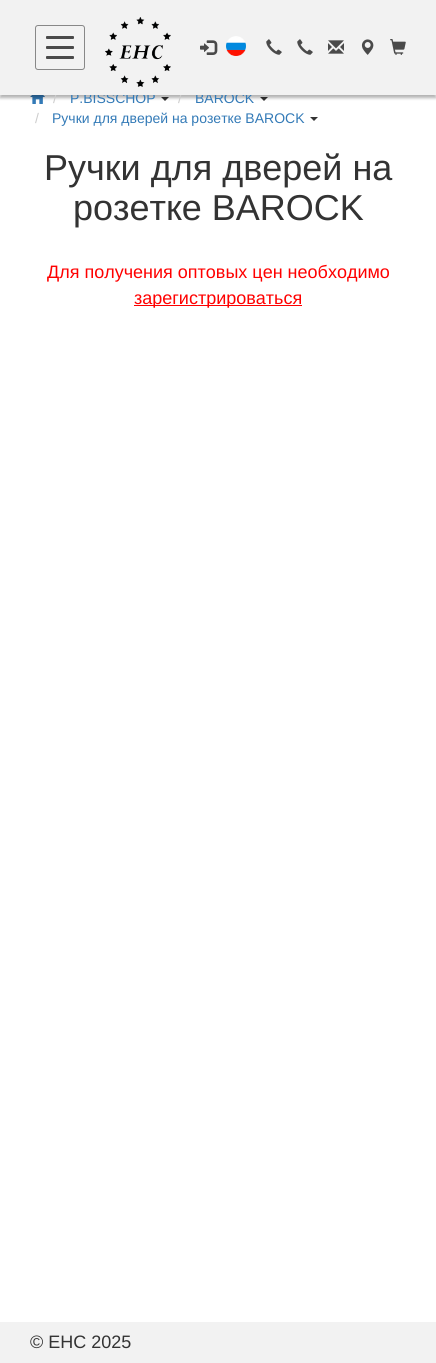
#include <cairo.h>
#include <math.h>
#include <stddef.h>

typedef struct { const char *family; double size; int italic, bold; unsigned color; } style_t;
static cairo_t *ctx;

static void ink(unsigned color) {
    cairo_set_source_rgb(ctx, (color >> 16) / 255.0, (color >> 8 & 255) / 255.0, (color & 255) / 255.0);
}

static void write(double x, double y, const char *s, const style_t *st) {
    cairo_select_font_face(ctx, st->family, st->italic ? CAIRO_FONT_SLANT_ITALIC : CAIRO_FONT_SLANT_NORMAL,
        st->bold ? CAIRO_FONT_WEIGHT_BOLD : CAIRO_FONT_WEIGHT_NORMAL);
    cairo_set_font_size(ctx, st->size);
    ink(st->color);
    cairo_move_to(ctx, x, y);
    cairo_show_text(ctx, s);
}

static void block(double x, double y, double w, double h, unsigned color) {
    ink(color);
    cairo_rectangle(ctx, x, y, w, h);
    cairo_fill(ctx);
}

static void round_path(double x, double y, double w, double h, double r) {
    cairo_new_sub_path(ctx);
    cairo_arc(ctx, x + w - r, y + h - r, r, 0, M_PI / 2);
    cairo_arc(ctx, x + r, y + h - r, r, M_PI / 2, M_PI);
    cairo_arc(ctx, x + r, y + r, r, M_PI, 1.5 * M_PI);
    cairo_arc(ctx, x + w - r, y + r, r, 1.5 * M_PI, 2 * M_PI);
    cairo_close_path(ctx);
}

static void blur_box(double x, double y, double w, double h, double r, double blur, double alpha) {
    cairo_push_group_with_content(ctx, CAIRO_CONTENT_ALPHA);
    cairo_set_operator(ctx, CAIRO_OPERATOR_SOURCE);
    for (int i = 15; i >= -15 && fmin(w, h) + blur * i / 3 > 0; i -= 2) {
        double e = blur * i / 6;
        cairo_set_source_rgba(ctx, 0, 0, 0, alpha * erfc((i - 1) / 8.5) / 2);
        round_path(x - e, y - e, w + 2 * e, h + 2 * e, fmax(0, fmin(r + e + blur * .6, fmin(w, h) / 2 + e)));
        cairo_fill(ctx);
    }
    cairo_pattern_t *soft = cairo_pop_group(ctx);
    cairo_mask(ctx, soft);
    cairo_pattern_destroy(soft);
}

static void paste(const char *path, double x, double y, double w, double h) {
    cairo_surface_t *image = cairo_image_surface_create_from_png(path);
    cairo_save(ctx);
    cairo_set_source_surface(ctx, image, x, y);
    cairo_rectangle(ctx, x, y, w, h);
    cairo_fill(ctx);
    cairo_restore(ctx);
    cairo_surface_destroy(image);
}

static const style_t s1 = {"Liberation Sans", 14, 0, 0, 0xcccccc};
static const style_t s2 = {"Liberation Sans", 14, 0, 0, 0x337ab7};
static const style_t s3 = {"Liberation Sans", 36, 0, 0, 0x333333};
static const style_t s4 = {"Liberation Sans", 18, 0, 0, 0xff0000};
static const style_t s5 = {"Liberation Sans", 18, 0, 0, 0x333333};

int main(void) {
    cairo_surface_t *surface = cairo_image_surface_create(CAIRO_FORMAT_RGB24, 436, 1363);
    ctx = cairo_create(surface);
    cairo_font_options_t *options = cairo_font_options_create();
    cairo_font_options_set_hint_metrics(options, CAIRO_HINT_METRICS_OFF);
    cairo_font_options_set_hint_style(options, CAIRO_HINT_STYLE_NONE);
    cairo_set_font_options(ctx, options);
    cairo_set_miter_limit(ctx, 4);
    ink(0xffffff);
    cairo_paint(ctx);
    paste("pic8.png", 30, 95, 15, 9);
    ink(0x333333);
    cairo_new_path(ctx);
    cairo_move_to(ctx, 161, 97);
    cairo_line_to(ctx, 169, 97);
    cairo_line_to(ctx, 165, 101);
    cairo_close_path(ctx);
    cairo_fill(ctx);
    cairo_new_path(ctx);
    cairo_move_to(ctx, 260, 97);
    cairo_line_to(ctx, 268, 97);
    cairo_line_to(ctx, 264, 101);
    cairo_close_path(ctx);
    cairo_fill(ctx);
    ink(0x000000);
    blur_box(0, 3, 436, 95, 0, 1.5, 0.3);
    write(53, 103, "/", &s1);
    write(70, 103, "P.BISSCHOP", &s2);
    write(178, 103, "/", &s1);
    write(195, 103, "BAROCK", &s2);
    block(0, 0, 436, 95, 0xf2f2f2);
    round_path(35.5, 25.5, 49, 44, 2.5);
    ink(0x888888);
    cairo_set_line_width(ctx, 1);
    cairo_stroke(ctx);
    ink(0x4a4a4a);
    round_path(46, 36, 28, 3, 1);
    cairo_fill(ctx);
    round_path(46, 46, 28, 3, 1);
    cairo_fill(ctx);
    round_path(46, 56, 28, 3, 1);
    cairo_fill(ctx);
    paste("pic1.png", 105, 17, 66, 70);
    paste("pic2.png", 200, 40, 18, 15);
    paste("pic3.png", 226, 36, 20, 20);
    paste("pic4.png", 266, 39, 16, 16);
    paste("pic4.png", 297, 39, 16, 16);
    paste("pic5.png", 328, 40, 16, 14);
    paste("pic6.png", 361, 39, 13, 16);
    paste("pic7.png", 390, 39, 16, 16);
    write(35, 123, "/", &s1);
    write(52, 123, "Ручки для дверей на розетке BAROCK", &s2);
    ink(0x333333);
    cairo_new_path(ctx);
    cairo_move_to(ctx, 310, 117);
    cairo_line_to(ctx, 318, 117);
    cairo_line_to(ctx, 314, 121);
    cairo_close_path(ctx);
    cairo_fill(ctx);
    write(44, 180, "Ручки для дверей на", &s3);
    write(73, 220, "розетке BAROCK", &s3);
    write(47, 278, "Для получения оптовых цен необходимо", &s4);
    block(134, 305, 168, 1, 0xff0000);
    write(134, 304, "зарегистрироваться", &s4);
    block(0, 1322, 436, 41, 0xf2f2f2);
    write(30, 1348, "© EHC 2025", &s5);
    cairo_surface_write_to_png(surface, "screenshot.png");
    cairo_font_options_destroy(options);
    cairo_destroy(ctx);
    cairo_surface_destroy(surface);
    return 0;
}
